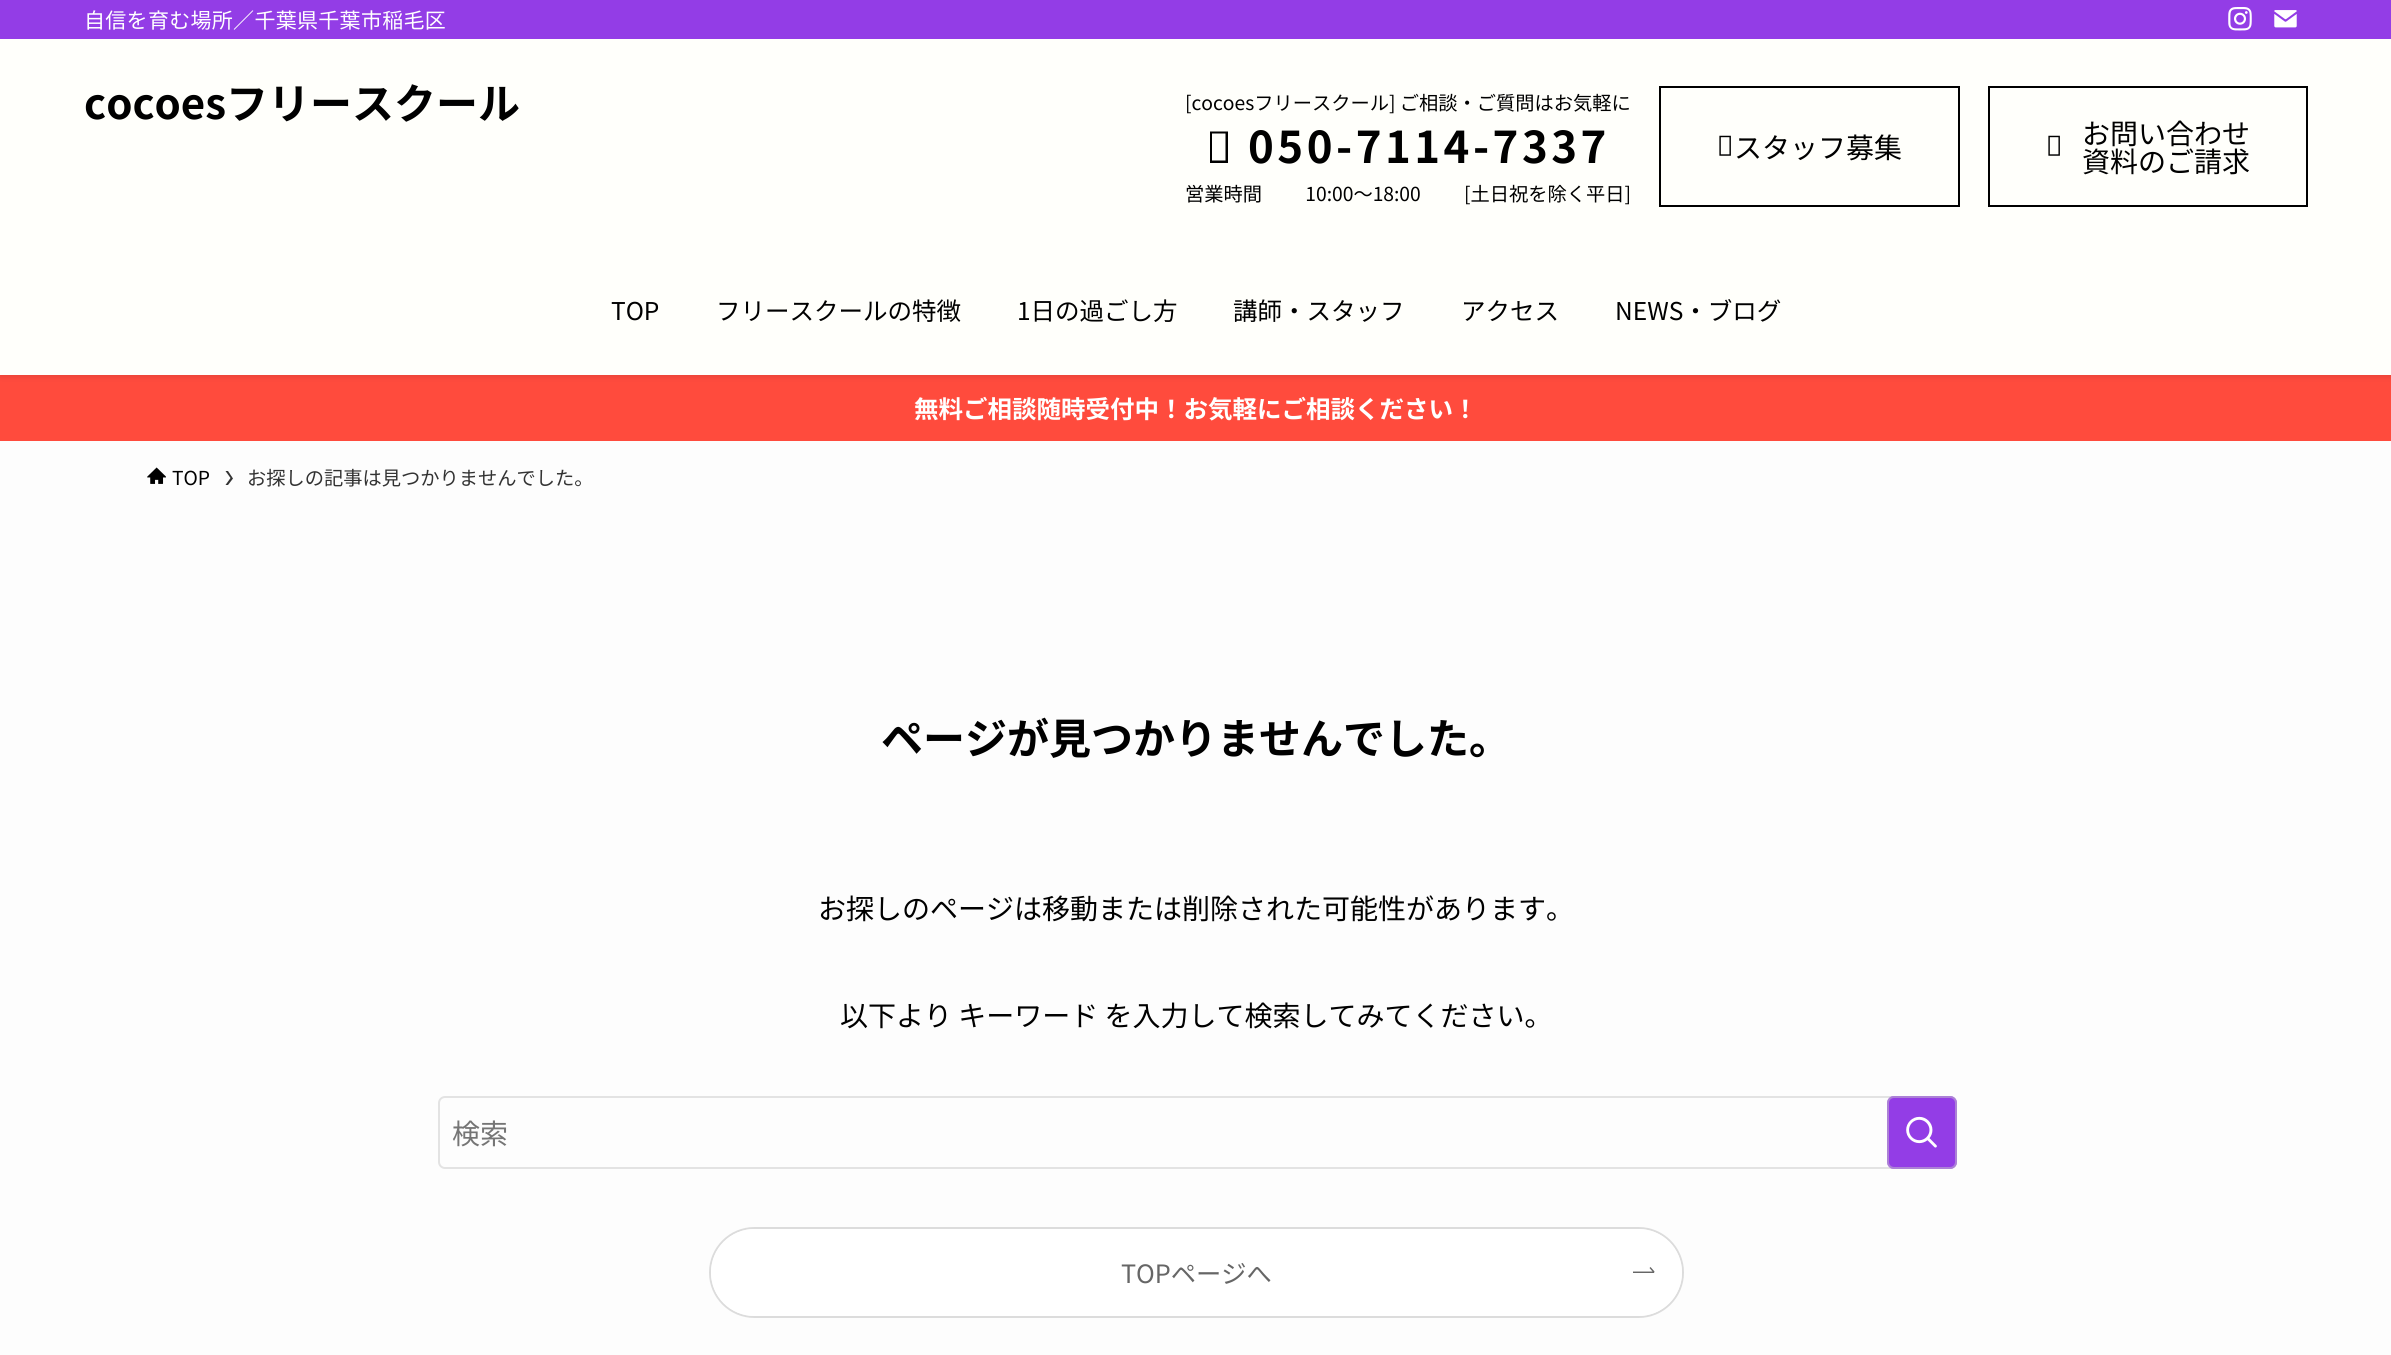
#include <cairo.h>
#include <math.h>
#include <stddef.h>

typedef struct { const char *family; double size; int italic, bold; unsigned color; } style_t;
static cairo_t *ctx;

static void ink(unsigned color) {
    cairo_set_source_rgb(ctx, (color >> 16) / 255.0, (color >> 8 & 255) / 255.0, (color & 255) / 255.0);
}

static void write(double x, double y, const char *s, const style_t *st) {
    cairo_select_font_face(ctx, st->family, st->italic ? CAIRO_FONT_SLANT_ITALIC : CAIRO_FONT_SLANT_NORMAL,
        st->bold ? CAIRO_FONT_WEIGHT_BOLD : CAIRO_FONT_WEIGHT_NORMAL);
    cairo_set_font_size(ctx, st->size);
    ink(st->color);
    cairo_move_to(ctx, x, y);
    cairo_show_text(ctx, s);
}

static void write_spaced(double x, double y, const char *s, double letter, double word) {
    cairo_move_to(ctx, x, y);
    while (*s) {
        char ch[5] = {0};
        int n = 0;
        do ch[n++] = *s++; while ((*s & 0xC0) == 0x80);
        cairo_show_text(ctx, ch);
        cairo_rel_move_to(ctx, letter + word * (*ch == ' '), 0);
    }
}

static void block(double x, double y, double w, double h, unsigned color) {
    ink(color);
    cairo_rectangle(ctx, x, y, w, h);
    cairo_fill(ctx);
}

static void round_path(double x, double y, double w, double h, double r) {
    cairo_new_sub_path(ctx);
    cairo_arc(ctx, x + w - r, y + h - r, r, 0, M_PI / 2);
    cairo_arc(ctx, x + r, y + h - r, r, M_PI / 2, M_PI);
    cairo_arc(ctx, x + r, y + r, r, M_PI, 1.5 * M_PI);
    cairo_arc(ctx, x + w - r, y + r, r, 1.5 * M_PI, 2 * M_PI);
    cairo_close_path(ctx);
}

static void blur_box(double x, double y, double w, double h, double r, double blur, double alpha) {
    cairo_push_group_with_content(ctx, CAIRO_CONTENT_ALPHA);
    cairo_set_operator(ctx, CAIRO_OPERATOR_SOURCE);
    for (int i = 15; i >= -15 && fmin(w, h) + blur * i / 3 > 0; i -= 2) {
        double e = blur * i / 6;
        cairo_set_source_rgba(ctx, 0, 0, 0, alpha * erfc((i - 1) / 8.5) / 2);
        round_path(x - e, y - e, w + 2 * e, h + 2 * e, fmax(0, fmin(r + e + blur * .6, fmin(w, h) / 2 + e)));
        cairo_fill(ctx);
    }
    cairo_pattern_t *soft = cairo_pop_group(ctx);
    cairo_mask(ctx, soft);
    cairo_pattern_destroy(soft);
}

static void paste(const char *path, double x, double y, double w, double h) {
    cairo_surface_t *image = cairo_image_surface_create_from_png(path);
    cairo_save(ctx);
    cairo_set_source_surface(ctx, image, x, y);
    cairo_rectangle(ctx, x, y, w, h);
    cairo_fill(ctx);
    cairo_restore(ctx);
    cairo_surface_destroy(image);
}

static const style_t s1 = {"Noto Sans JP", 42, 0, 1, 0x000000};
static const style_t s2 = {"Noto Sans JP", 19.25, 0, 0, 0x000000};
static const style_t s3 = {"Noto Sans JP", 28, 0, 0, 0x000000};
static const style_t s4 = {"Noto Sans JP", 24.5, 0, 0, 0x000000};
static const style_t s5 = {"Noto Sans JP", 24.5, 0, 1, 0xffffff};
static const style_t s6 = {"Noto Sans JP", 19.25, 0, 0, 0x333333};
static const style_t s7 = {"Noto Sans JP", 28, 0, 0, 0x757575};
static const style_t s8 = {"Noto Sans JP", 25.25, 0, 0, 0x666666};

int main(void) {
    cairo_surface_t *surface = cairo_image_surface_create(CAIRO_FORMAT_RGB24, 2391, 1355);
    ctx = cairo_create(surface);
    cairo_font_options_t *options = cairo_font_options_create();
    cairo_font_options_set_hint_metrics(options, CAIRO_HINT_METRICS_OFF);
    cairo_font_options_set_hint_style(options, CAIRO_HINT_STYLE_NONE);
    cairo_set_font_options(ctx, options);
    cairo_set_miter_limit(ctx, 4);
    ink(0xfdfdfd);
    cairo_paint(ctx);
    block(0, 375, 2391, 66, 0xff4b3d);
    ink(0x000000);
    blur_box(0, 2, 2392, 374, 0, 3.5, 0.12);
    block(0, 39, 2391, 336, 0xfffffb);
    block(0, 0, 2391, 39, 0x933de6);
    cairo_select_font_face(ctx, "Noto Sans JP", CAIRO_FONT_SLANT_NORMAL, CAIRO_FONT_WEIGHT_NORMAL);
    cairo_set_font_size(ctx, 21);
    ink(0xffffff);
    write_spaced(84, 28, "自信を育む場所／千葉県千葉市稲毛区", 0.3, 0);
    paste("pic1.png", 2228, 7, 24, 24);
    paste("pic2.png", 2274, 10, 23, 18);
    write(84, 119, "cocoesフリースクール", &s1);
    write(1185, 110, "[cocoesフリースクール] ご相談・ご質問はお気軽に", &s2);
    cairo_new_path(ctx);
    cairo_move_to(ctx, 1210, 163);
    cairo_line_to(ctx, 1210, 131.5);
    cairo_line_to(ctx, 1228, 131.5);
    cairo_line_to(ctx, 1228, 163);
    cairo_close_path(ctx);
    cairo_move_to(ctx, 1212, 160.5);
    cairo_line_to(ctx, 1225.5, 160.5);
    cairo_line_to(ctx, 1225.5, 133.5);
    cairo_line_to(ctx, 1212, 133.5);
    cairo_close_path(ctx);
    cairo_fill(ctx);
    cairo_select_font_face(ctx, "Noto Sans JP", CAIRO_FONT_SLANT_NORMAL, CAIRO_FONT_WEIGHT_BOLD);
    cairo_set_font_size(ctx, 43.75);
    write_spaced(1248, 163, "050-7114-7337", 3.5, 0);
    cairo_select_font_face(ctx, "Noto Sans JP", CAIRO_FONT_SLANT_NORMAL, CAIRO_FONT_WEIGHT_NORMAL);
    cairo_set_font_size(ctx, 19.25);
    write_spaced(1185, 201, "営業時間 10:00～18:00 [土日祝を除く平日]", 0, 39);
    cairo_rectangle(ctx, 1660, 87, 299, 119);
    cairo_stroke(ctx);
    paste("pic3.png", 1719, 135, 12, 21);
    write(1734, 158, "スタッフ募集", &s3);
    cairo_rectangle(ctx, 1989, 87, 318, 119);
    cairo_stroke(ctx);
    paste("pic3.png", 2048, 135, 12, 21);
    write(2082, 144, "お問い合わせ", &s3);
    write(2082, 172, "資料のご請求", &s3);
    write(611, 320, "TOP", &s4);
    write(716, 320, "フリースクールの特徴", &s4);
    write(1017, 320, "1日の過ごし方", &s4);
    write(1233, 320, "講師・スタッフ", &s4);
    write(1461, 320, "アクセス", &s4);
    write(1615, 320, "NEWS・ブログ", &s4);
    write(914, 418, "無料ご相談随時受付中！お気軽にご相談ください！", &s5);
    paste("pic4.png", 147, 467, 19, 17);
    write(172, 485, "TOP", &s2);
    ink(0x333333);
    cairo_new_path(ctx);
    cairo_move_to(ctx, 228, 471);
    cairo_line_to(ctx, 225.5, 471);
    cairo_line_to(ctx, 230.5, 478);
    cairo_line_to(ctx, 225.5, 485);
    cairo_line_to(ctx, 228, 485);
    cairo_line_to(ctx, 233, 478.5);
    cairo_close_path(ctx);
    cairo_fill(ctx);
    write(247, 485, "お探しの記事は見つかりませんでした。", &s6);
    write(881, 754, "ページが見つかりませんでした。", &s1);
    write(818, 919, "お探しのページは移動または削除された可能性があります。", &s3);
    write(840, 1026, "以下より キーワード を入力して検索してみてください。", &s3);
    round_path(439, 1097, 1517, 71, 6);
    ink(0xe3e3e3);
    cairo_stroke(ctx);
    write(452, 1144, "検索", &s7);
    ink(0x933de6);
    round_path(1887, 1096, 70, 73, 7);
    cairo_fill(ctx);
    round_path(1888, 1097, 68, 71, 6);
    cairo_set_source_rgba(ctx, 0.78, 0.78, 0.78, 0.5);
    cairo_stroke(ctx);
    paste("pic5.png", 1906, 1116, 31, 32);
    round_path(710, 1228, 973, 89, 44.5);
    ink(0xdcdcdc);
    cairo_stroke(ctx);
    ink(0xffffff);
    round_path(711, 1229, 971, 87, 43.5);
    cairo_fill(ctx);
    write(1121, 1283, "TOPページへ", &s8);
    cairo_new_path(ctx);
    cairo_move_to(ctx, 1654, 1273);
    cairo_line_to(ctx, 1633, 1273);
    cairo_line_to(ctx, 1633, 1271.5);
    cairo_line_to(ctx, 1652.5, 1271.5);
    cairo_line_to(ctx, 1649.5, 1268);
    cairo_line_to(ctx, 1650.5, 1267);
    cairo_line_to(ctx, 1654.5, 1271.5);
    cairo_close_path(ctx);
    cairo_fill(ctx);
    cairo_surface_write_to_png(surface, "screenshot.png");
    cairo_font_options_destroy(options);
    cairo_destroy(ctx);
    cairo_surface_destroy(surface);
    return 0;
}
